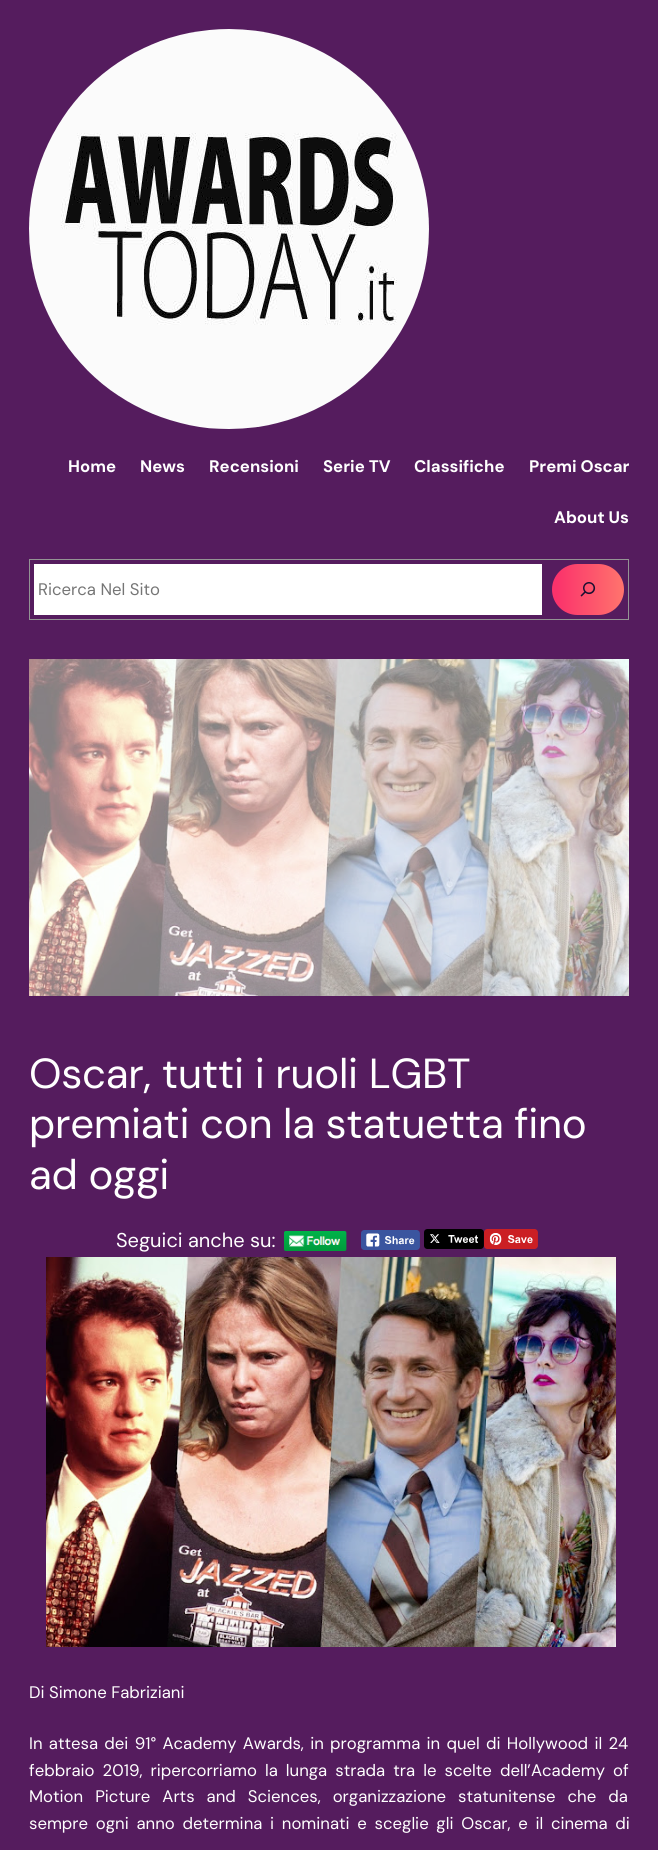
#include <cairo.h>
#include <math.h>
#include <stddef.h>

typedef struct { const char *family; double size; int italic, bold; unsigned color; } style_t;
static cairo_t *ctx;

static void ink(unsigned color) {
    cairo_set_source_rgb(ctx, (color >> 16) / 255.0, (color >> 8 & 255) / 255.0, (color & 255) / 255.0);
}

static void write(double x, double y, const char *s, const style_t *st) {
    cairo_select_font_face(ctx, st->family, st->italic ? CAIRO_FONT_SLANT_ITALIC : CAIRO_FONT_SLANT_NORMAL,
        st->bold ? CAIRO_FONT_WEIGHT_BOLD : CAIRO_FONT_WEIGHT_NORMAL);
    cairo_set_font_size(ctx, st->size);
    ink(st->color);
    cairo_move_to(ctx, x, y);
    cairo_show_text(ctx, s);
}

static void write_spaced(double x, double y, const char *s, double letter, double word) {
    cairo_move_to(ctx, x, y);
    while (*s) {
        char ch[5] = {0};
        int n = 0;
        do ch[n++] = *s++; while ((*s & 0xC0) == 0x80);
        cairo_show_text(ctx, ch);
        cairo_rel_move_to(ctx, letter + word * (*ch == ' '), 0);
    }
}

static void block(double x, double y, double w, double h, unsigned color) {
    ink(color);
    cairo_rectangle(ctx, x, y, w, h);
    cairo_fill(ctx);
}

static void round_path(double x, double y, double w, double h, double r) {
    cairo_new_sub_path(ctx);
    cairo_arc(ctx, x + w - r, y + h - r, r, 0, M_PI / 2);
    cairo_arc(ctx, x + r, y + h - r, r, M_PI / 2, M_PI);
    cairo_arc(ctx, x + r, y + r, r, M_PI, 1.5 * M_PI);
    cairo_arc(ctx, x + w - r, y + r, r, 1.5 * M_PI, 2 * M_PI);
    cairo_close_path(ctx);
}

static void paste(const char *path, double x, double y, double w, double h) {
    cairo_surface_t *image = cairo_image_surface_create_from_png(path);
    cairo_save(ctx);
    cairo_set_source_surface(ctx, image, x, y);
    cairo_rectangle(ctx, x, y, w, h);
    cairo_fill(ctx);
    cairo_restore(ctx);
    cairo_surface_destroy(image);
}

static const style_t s1 = {"DM Sans", 16.75, 0, 1, 0xffffff};
static const style_t s2 = {"DM Sans", 16.75, 0, 0, 0x757575};
static const style_t s3 = {"DM Sans", 20, 0, 0, 0xffffff};
static const style_t s4 = {"DM Sans", 16.75, 0, 0, 0xffffff};

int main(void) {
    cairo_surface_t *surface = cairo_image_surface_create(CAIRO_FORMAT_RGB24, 658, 1850);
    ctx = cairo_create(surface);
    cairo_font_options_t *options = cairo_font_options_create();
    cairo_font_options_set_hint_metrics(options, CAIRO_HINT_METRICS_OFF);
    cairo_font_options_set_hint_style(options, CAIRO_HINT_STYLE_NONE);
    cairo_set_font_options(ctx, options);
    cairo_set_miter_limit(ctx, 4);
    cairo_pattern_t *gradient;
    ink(0x551c5e);
    cairo_paint(ctx);
    paste("pic1.png", 29, 29, 400, 400);
    write(68, 472, "Home", &s1);
    write(140, 472, "News", &s1);
    write(209, 472, "Recensioni", &s1);
    write(323, 472, "Serie TV", &s1);
    write(414, 472, "Classifiche", &s1);
    write(529, 472, "Premi Oscar", &s1);
    write(554, 523, "About Us", &s1);
    cairo_rectangle(ctx, 29.5, 559.5, 599, 60);
    ink(0x949494);
    cairo_set_line_width(ctx, 1);
    cairo_stroke(ctx);
    block(34, 564, 508, 51, 0xffffff);
    write(38, 595, "Ricerca Nel Sito", &s2);
    gradient = cairo_pattern_create_linear(552, 590, 624, 590);
    cairo_pattern_add_color_stop_rgba(gradient, 0.06, 0.984, 0.196, 0.42, 1);
    cairo_pattern_add_color_stop_rgba(gradient, 1, 1, 0.455, 0.427, 1);
    cairo_set_source(ctx, gradient);
    cairo_pattern_destroy(gradient);
    round_path(552, 564, 72, 51, 25.5);
    cairo_fill(ctx);
    paste("pic2.png", 580, 582, 16, 15);
    paste("pic3.png", 29, 659, 600, 337);
    cairo_set_font_size(ctx, 42);
    ink(0xffffff);
    write_spaced(29, 1088, "Oscar, tutti i ruoli LGBT", -0.3, 0);
    write_spaced(29, 1138, "premiati con la statuetta fino", -0.3, 0);
    write_spaced(29, 1189, "ad oggi", -0.3, 0);
    write(116, 1247, "Seguici anche su:", &s3);
    paste("pic4.png", 284, 1231, 63, 20);
    paste("pic5.png", 361, 1230, 59, 20);
    paste("pic6.png", 424, 1229, 60, 20);
    paste("pic7.png", 484, 1229, 54, 20);
    paste("pic8.png", 46, 1257, 570, 390);
    write(29, 1698, "Di Simone Fabriziani", &s4);
    write_spaced(29, 1749, "In attesa dei 91° Academy Awards, in programma in quel di Hollywood il 24", 0, 1.8);
    write_spaced(29, 1776, "febbraio 2019, ripercorriamo la lunga strada tra le scelte dell’Academy of", 0, 3.6);
    write_spaced(29, 1802, "Motion Picture Arts and Sciences, organizzazione statunitense che da", 0, 7.5);
    write_spaced(29, 1829, "sempre ogni anno determina i nominati e sceglie gli Oscar, e il cinema di", 0, 3.25);
    cairo_surface_write_to_png(surface, "screenshot.png");
    cairo_font_options_destroy(options);
    cairo_destroy(ctx);
    cairo_surface_destroy(surface);
    return 0;
}
